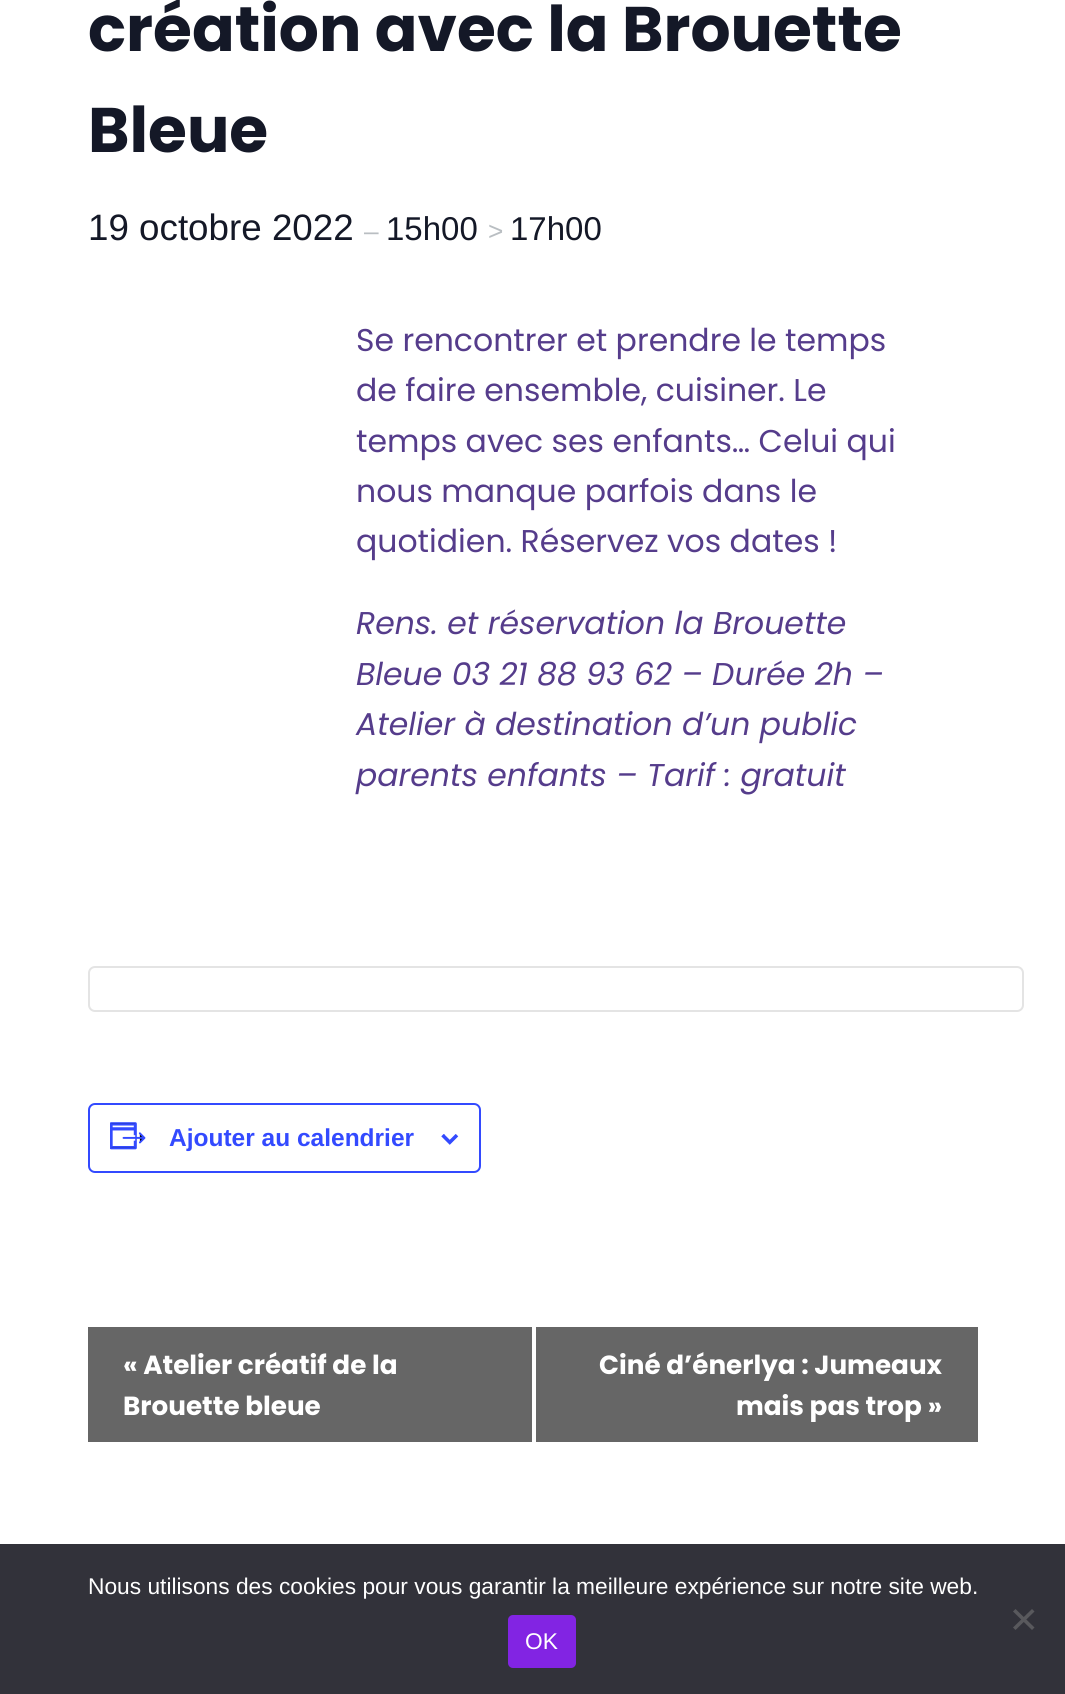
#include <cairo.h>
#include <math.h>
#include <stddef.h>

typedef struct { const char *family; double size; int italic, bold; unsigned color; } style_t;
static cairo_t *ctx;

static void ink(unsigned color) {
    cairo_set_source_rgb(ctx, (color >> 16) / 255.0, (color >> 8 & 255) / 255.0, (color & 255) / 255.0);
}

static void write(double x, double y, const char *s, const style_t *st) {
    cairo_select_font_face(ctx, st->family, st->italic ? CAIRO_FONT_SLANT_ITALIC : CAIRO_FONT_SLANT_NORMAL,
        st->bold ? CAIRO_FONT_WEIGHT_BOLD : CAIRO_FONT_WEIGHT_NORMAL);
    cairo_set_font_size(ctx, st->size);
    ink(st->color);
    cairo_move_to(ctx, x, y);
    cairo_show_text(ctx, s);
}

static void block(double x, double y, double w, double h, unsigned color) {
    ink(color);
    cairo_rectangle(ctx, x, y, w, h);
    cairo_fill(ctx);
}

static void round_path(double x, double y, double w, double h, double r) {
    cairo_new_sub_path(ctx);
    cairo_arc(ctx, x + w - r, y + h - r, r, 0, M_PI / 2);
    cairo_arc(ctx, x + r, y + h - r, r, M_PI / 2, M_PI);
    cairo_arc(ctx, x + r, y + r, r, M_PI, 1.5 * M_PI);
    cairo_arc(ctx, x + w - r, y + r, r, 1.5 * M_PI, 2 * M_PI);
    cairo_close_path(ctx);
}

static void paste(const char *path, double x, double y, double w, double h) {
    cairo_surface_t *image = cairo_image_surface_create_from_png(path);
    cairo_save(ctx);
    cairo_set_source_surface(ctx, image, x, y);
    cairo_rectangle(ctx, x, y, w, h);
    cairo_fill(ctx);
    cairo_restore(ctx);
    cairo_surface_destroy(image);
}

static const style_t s1 = {"Poppins", 63, 0, 1, 0x141827};
static const style_t s2 = {"Liberation Sans", 36.75, 0, 0, 0x141827};
static const style_t s3 = {"Liberation Sans", 26.25, 0, 0, 0xb9bec2};
static const style_t s4 = {"Liberation Sans", 33, 0, 0, 0x141827};
static const style_t s5 = {"Poppins", 31.5, 0, 0, 0x553c8b};
static const style_t s6 = {"Poppins", 31.5, 1, 0, 0x553c8b};
static const style_t s7 = {"Liberation Sans", 24.5, 0, 1, 0x334aff};
static const style_t s8 = {"Poppins", 26.25, 0, 1, 0xffffff};
static const style_t s9 = {"Liberation Sans", 22.75, 0, 0, 0xffffff};

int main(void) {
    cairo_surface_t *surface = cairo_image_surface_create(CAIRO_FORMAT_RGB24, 1065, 1694);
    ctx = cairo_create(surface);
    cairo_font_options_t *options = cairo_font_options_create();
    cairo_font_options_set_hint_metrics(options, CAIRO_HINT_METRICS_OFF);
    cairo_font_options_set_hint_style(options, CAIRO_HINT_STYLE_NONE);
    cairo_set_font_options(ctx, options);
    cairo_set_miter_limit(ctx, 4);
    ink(0xffffff);
    cairo_paint(ctx);
    write(88, 51, "création avec la Brouette", &s1);
    write(88, 152, "Bleue", &s1);
    write(88, 240, "19 octobre 2022", &s2);
    write(364, 240, "–", &s3);
    write(386, 240, "15h00", &s4);
    write(488, 240, ">", &s3);
    write(510, 240, "17h00", &s4);
    write(356, 351, "Se rencontrer et prendre le temps", &s5);
    write(356, 401, "de faire ensemble, cuisiner. Le", &s5);
    write(356, 452, "temps avec ses enfants… Celui qui", &s5);
    write(356, 502, "nous manque parfois dans le", &s5);
    write(356, 552, "quotidien. Réservez vos dates !", &s5);
    write(356, 634, "Rens. et réservation la Brouette", &s6);
    write(356, 685, "Bleue 03 21 88 93 62 – Durée 2h –", &s6);
    write(356, 735, "Atelier à destination d’un public", &s6);
    write(356, 786, "parents enfants – Tarif : gratuit", &s6);
    round_path(89, 967, 934, 44, 6);
    ink(0xe4e4e4);
    cairo_stroke(ctx);
    round_path(89, 1104, 391, 68, 6);
    ink(0x334aff);
    cairo_stroke(ctx);
    paste("pic1.png", 110, 1122, 36, 28);
    write(169, 1146, "Ajouter au calendrier", &s7);
    paste("pic2.png", 441, 1134, 18, 11);
    block(88, 1327, 444, 115, 0x666666);
    write(123, 1374, "« Atelier créatif de la", &s8);
    write(123, 1415, "Brouette bleue", &s8);
    block(536, 1327, 442, 115, 0x666666);
    write(599, 1374, "Ciné d’énerlya : Jumeaux", &s8);
    write(736, 1415, "mais pas trop »", &s8);
    block(0, 1544, 1065, 150, 0x32323a);
    write(88, 1594, "Nous utilisons des cookies pour vous garantir la meilleure expérience sur notre site web.", &s9);
    ink(0x59595d);
    cairo_new_path(ctx);
    cairo_move_to(ctx, 1032, 1609);
    cairo_line_to(ctx, 1034.5, 1611.5);
    cairo_line_to(ctx, 1015.5, 1630);
    cairo_line_to(ctx, 1013, 1627.5);
    cairo_close_path(ctx);
    cairo_fill(ctx);
    cairo_new_path(ctx);
    cairo_move_to(ctx, 1013, 1611.5);
    cairo_line_to(ctx, 1015.5, 1609);
    cairo_line_to(ctx, 1034.5, 1627.5);
    cairo_line_to(ctx, 1032, 1630);
    cairo_close_path(ctx);
    cairo_fill(ctx);
    ink(0x8224e3);
    round_path(508, 1615, 68, 53, 5);
    cairo_fill(ctx);
    write(525, 1649, "OK", &s9);
    cairo_surface_write_to_png(surface, "screenshot.png");
    cairo_font_options_destroy(options);
    cairo_destroy(ctx);
    cairo_surface_destroy(surface);
    return 0;
}
